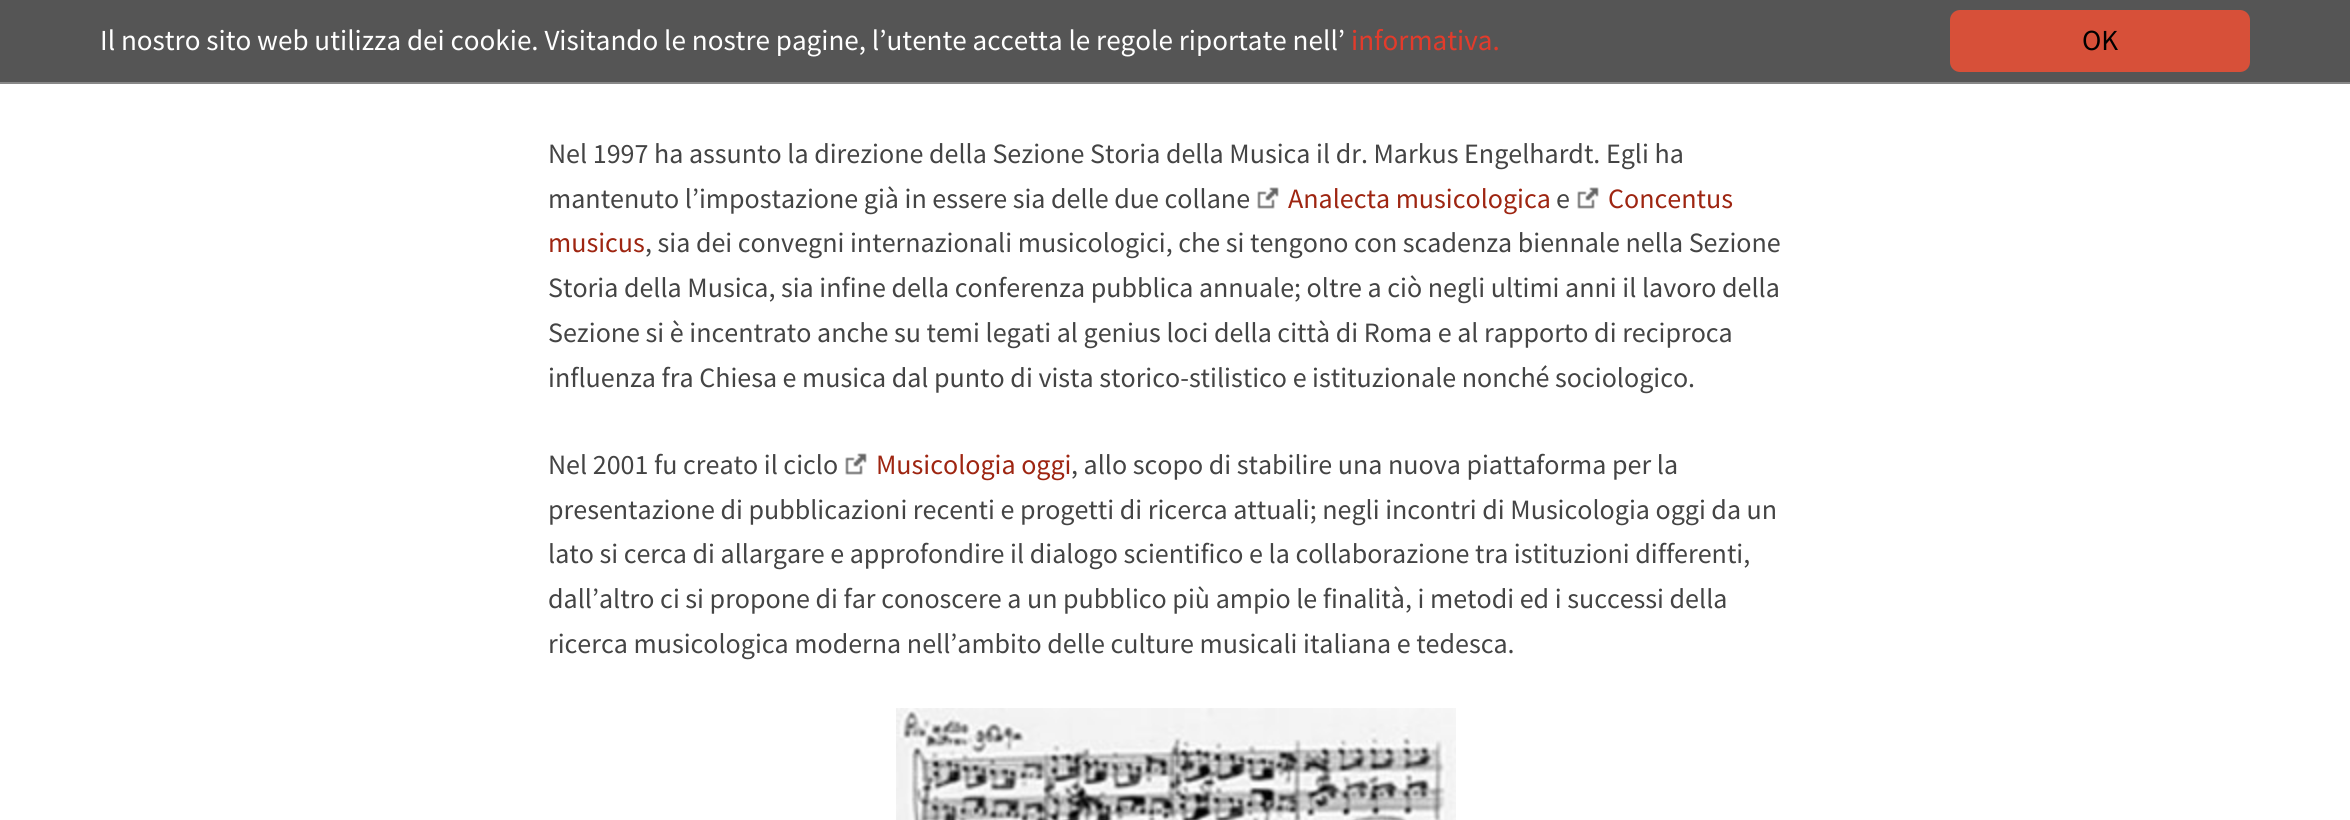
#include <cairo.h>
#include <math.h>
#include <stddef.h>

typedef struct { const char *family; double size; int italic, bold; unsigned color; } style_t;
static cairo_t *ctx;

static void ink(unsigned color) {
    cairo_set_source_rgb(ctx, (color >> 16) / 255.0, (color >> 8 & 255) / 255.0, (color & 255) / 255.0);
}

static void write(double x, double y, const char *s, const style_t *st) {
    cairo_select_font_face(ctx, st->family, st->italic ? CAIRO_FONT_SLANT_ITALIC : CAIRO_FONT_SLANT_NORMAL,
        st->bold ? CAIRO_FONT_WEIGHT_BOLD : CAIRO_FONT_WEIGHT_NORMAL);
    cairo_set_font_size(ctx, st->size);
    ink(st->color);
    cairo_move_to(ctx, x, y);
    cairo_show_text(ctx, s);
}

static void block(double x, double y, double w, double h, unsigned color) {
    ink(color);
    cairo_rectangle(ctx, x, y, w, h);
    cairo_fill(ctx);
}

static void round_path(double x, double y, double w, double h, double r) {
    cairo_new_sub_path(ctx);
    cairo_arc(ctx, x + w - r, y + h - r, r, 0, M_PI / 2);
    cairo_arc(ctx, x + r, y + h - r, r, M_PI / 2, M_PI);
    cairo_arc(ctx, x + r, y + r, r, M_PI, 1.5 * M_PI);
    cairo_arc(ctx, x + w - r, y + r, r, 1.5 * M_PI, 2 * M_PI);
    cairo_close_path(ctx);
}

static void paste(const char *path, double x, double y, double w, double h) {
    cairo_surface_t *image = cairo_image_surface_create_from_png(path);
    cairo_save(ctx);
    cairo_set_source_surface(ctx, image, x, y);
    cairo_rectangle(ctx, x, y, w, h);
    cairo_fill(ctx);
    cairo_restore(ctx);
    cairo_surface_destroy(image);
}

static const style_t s1 = {"Source Sans Pro", 29.1, 0, 0, 0xffffff};
static const style_t s2 = {"Source Sans Pro", 29.1, 0, 0, 0xe33b2b};
static const style_t s3 = {"Source Sans Pro", 29.1, 0, 0, 0x000000};
static const style_t s4 = {"Source Sans Pro", 28, 0, 0, 0x444444};
static const style_t s5 = {"Source Sans Pro", 28, 0, 0, 0x9e2511};

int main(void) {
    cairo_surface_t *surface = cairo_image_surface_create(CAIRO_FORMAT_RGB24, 2350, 820);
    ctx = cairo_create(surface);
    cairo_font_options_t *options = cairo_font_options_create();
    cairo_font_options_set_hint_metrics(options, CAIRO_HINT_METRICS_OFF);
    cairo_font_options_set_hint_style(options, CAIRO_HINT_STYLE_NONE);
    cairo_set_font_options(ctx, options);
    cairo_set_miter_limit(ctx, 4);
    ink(0xffffff);
    cairo_paint(ctx);
    block(0, 0, 2350, 82, 0x555555);
    block(0, 82, 2350, 2, 0x888888);
    write(100, 50, "Il nostro sito web utilizza dei cookie. Visitando le nostre pagine, l’utente accetta le regole riportate nell’", &s1);
    write(1351, 50, "informativa.", &s2);
    ink(0xd75039);
    round_path(1950, 10, 300, 62, 10);
    cairo_fill(ctx);
    write(2082, 50, "OK", &s3);
    write(548, 163, "Nel 1997 ha assunto la direzione della Sezione Storia della Musica il dr. Markus Engelhardt. Egli ha", &s4);
    write(548, 208, "mantenuto l’impostazione già in essere sia delle due collane", &s4);
    paste("pic1.png", 1257, 187, 22, 22);
    write(1288, 208, "Analecta musicologica", &s5);
    write(1556, 208, "e", &s4);
    paste("pic1.png", 1577, 187, 22, 22);
    write(1608, 208, "Concentus", &s5);
    write(548, 252, "musicus", &s5);
    write(645, 252, ", sia dei convegni internazionali musicologici, che si tengono con scadenza biennale nella Sezione", &s4);
    write(548, 297, "Storia della Musica, sia infine della conferenza pubblica annuale; oltre a ciò negli ultimi anni il lavoro della", &s4);
    write(548, 342, "Sezione si è incentrato anche su temi legati al genius loci della città di Roma e al rapporto di reciproca", &s4);
    write(548, 387, "influenza fra Chiesa e musica dal punto di vista storico-stilistico e istituzionale nonché sociologico.", &s4);
    write(548, 474, "Nel 2001 fu creato il ciclo", &s4);
    paste("pic1.png", 845, 453, 22, 22);
    write(876, 474, "Musicologia oggi", &s5);
    write(1071, 474, ", allo scopo di stabilire una nuova piattaforma per la", &s4);
    write(548, 519, "presentazione di pubblicazioni recenti e progetti di ricerca attuali; negli incontri di Musicologia oggi da un", &s4);
    write(548, 563, "lato si cerca di allargare e approfondire il dialogo scientifico e la collaborazione tra istituzioni differenti,", &s4);
    write(548, 608, "dall’altro ci si propone di far conoscere a un pubblico più ampio le finalità, i metodi ed i successi della", &s4);
    write(548, 653, "ricerca musicologica moderna nell’ambito delle culture musicali italiana e tedesca.", &s4);
    paste("pic2.png", 896, 708, 560, 112);
    cairo_surface_write_to_png(surface, "screenshot.png");
    cairo_font_options_destroy(options);
    cairo_destroy(ctx);
    cairo_surface_destroy(surface);
    return 0;
}
